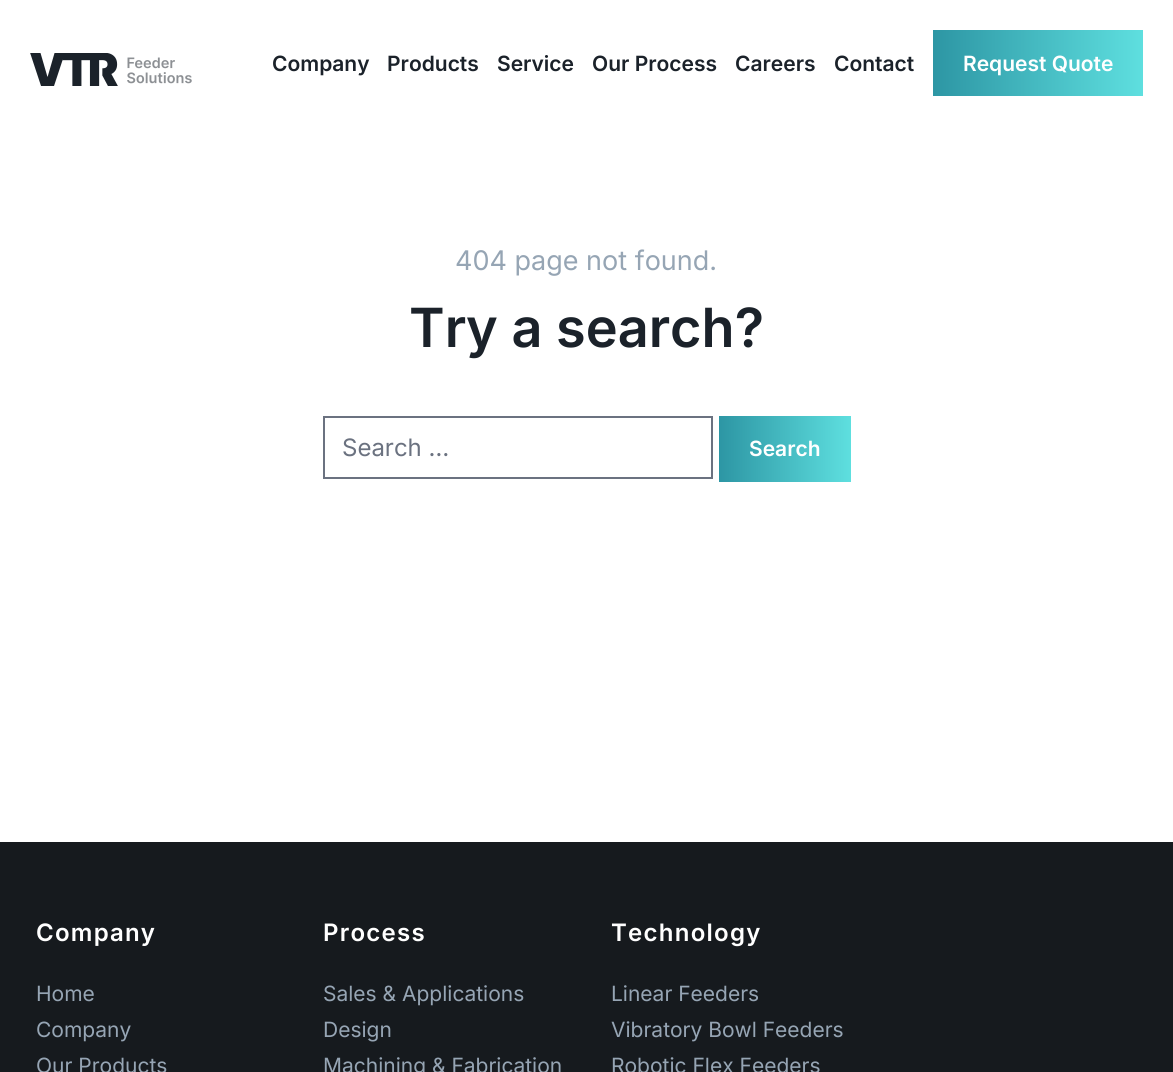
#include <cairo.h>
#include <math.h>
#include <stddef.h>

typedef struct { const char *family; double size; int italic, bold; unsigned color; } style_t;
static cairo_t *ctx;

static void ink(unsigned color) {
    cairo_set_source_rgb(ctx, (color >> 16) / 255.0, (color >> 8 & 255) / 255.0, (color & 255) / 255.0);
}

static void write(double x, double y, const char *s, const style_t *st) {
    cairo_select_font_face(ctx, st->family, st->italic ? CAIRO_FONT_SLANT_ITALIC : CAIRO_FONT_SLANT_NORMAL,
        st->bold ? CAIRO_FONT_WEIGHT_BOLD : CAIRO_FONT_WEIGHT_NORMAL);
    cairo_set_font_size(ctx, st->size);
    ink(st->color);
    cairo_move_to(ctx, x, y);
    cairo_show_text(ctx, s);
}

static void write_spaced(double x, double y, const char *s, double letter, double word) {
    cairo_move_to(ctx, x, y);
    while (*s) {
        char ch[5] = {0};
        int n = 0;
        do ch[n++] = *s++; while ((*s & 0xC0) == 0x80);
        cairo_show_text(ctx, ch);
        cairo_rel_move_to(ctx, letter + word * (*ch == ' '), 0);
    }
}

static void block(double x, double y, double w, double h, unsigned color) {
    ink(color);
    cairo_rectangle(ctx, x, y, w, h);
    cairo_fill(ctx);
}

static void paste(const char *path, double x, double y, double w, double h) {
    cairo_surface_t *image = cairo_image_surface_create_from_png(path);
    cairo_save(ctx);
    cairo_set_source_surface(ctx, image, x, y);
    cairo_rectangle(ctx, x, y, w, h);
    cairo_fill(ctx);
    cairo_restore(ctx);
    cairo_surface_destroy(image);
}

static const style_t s1 = {"Inter SemiBold", 21, 0, 0, 0x1b222a};
static const style_t s2 = {"Inter SemiBold", 21, 0, 0, 0xffffff};
static const style_t s3 = {"Inter", 27, 0, 0, 0x96a5b4};
static const style_t s4 = {"Inter SemiBold", 54, 0, 0, 0x1b222a};
static const style_t s5 = {"Inter", 24, 0, 0, 0x6b7280};
static const style_t s6 = {"Inter", 21, 0, 0, 0x96a5b4};

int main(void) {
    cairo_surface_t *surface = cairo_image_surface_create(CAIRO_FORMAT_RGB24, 1173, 1072);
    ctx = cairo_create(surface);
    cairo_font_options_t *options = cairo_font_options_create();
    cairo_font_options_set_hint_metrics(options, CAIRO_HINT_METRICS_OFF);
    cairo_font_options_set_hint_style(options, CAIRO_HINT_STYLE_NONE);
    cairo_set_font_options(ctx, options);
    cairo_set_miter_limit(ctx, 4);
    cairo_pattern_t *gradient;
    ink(0xffffff);
    cairo_paint(ctx);
    paste("pic1.png", 30, 53, 162, 33);
    write(272, 71, "Company", &s1);
    write(387, 71, "Products", &s1);
    write(497, 71, "Service", &s1);
    write(592, 71, "Our Process", &s1);
    write(735, 71, "Careers", &s1);
    write(834, 71, "Contact", &s1);
    gradient = cairo_pattern_create_linear(933, 63, 1143, 63);
    cairo_pattern_add_color_stop_rgba(gradient, 0, 0.176, 0.588, 0.643, 1);
    cairo_pattern_add_color_stop_rgba(gradient, 1, 0.369, 0.875, 0.875, 1);
    cairo_set_source(ctx, gradient);
    cairo_pattern_destroy(gradient);
    cairo_rectangle(ctx, 933, 30, 210, 66);
    cairo_fill(ctx);
    write(963, 71, "Request Quote", &s2);
    write(455, 270, "404 page not found.", &s3);
    write(409, 347, "Try a search?", &s4);
    cairo_rectangle(ctx, 324, 417, 388, 61);
    ink(0x6b7280);
    cairo_stroke(ctx);
    write(342, 456, "Search …", &s5);
    gradient = cairo_pattern_create_linear(719, 449, 851, 449);
    cairo_pattern_add_color_stop_rgba(gradient, 0, 0.176, 0.588, 0.643, 1);
    cairo_pattern_add_color_stop_rgba(gradient, 1, 0.369, 0.875, 0.875, 1);
    cairo_set_source(ctx, gradient);
    cairo_pattern_destroy(gradient);
    cairo_rectangle(ctx, 719, 416, 132, 66);
    cairo_fill(ctx);
    write(749, 456, "Search", &s2);
    block(0, 842, 1173, 230, 0x161a1e);
    cairo_set_font_size(ctx, 24);
    ink(0xffffff);
    write_spaced(36, 941, "Company", 1.25, 0);
    write(36, 1001, "Home", &s6);
    write(36, 1037, "Company", &s6);
    write(36, 1073, "Our Products", &s6);
    cairo_select_font_face(ctx, "Inter SemiBold", CAIRO_FONT_SLANT_NORMAL, CAIRO_FONT_WEIGHT_NORMAL);
    cairo_set_font_size(ctx, 24);
    ink(0xffffff);
    write_spaced(323, 941, "Process", 1.25, 0);
    write(323, 1001, "Sales & Applications", &s6);
    write(323, 1037, "Design", &s6);
    write(323, 1073, "Machining & Fabrication", &s6);
    cairo_select_font_face(ctx, "Inter SemiBold", CAIRO_FONT_SLANT_NORMAL, CAIRO_FONT_WEIGHT_NORMAL);
    cairo_set_font_size(ctx, 24);
    ink(0xffffff);
    write_spaced(611, 941, "Technology", 1.25, 0);
    write(611, 1001, "Linear Feeders", &s6);
    write(611, 1037, "Vibratory Bowl Feeders", &s6);
    write(611, 1073, "Robotic Flex Feeders", &s6);
    cairo_surface_write_to_png(surface, "screenshot.png");
    cairo_font_options_destroy(options);
    cairo_destroy(ctx);
    cairo_surface_destroy(surface);
    return 0;
}
